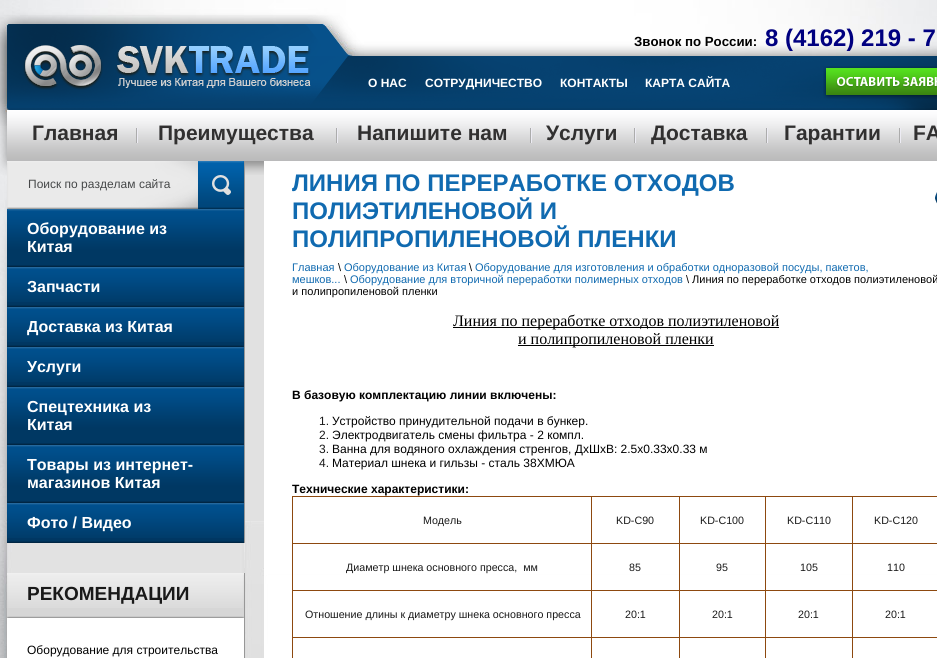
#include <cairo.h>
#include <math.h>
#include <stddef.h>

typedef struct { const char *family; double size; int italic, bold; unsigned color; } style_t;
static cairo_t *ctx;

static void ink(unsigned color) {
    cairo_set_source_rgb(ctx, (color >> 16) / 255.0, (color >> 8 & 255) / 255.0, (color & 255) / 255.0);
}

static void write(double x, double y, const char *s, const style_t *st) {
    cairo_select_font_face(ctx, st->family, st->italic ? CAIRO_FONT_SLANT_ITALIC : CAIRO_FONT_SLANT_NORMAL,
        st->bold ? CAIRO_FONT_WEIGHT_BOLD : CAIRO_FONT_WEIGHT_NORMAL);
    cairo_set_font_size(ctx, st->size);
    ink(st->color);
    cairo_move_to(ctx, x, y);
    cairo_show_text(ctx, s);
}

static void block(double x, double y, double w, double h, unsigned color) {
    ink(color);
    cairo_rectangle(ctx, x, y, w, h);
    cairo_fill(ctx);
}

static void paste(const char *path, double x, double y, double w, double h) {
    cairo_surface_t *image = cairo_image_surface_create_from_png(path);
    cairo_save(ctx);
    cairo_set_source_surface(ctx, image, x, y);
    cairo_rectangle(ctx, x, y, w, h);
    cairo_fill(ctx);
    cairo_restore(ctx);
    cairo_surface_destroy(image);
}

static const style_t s1 = {"Liberation Sans", 13.25, 0, 1, 0x000000};
static const style_t s2 = {"Liberation Sans", 24, 0, 1, 0x000080};
static const style_t s3 = {"Liberation Sans", 12, 0, 1, 0xffffff};
static const style_t s4 = {"Liberation Sans", 21, 0, 1, 0x313030};
static const style_t s5 = {"Liberation Sans", 12, 0, 0, 0x464849};
static const style_t s6 = {"Liberation Sans", 16, 0, 1, 0xffffff};
static const style_t s7 = {"Liberation Sans", 19, 0, 1, 0x191919};
static const style_t s8 = {"Liberation Sans", 12, 0, 0, 0x000000};
static const style_t s9 = {"Liberation Sans", 24, 0, 1, 0x106ab0};
static const style_t s10 = {"Liberation Sans", 11, 0, 0, 0x106ab0};
static const style_t s11 = {"Liberation Sans", 11, 0, 0, 0x000000};
static const style_t s12 = {"Liberation Serif", 16, 0, 0, 0x000000};
static const style_t s13 = {"Liberation Sans", 12, 0, 1, 0x000000};
static const style_t s14 = {"Liberation Sans", 12, 0, 0, 0x191919};
static const style_t s15 = {"Liberation Sans", 10.7, 0, 0, 0x191919};

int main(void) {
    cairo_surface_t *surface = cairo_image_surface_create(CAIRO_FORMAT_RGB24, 937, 658);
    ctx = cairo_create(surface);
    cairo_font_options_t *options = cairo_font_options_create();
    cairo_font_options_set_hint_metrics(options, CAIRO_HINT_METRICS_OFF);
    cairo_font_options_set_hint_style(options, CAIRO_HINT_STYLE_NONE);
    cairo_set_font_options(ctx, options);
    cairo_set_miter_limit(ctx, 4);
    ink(0xffffff);
    cairo_paint(ctx);
    paste("pic1.png", 0, 644, 264, 14);
    paste("pic2.png", 0, 0, 937, 644);
    paste("pic3.png", 0, 15, 937, 111);
    write(634, 46, "Звонок по России:", &s1);
    write(765, 46, "8 (4162) 219 - 7", &s2);
    paste("pic4.png", 23, 45, 288, 45);
    write(368, 87, "О НАС", &s3);
    write(425, 87, "СОТРУДНИЧЕСТВО", &s3);
    write(560, 87, "КОНТАКТЫ", &s3);
    write(645, 87, "КАРТА САЙТА", &s3);
    paste("pic5.png", 823, 66, 114, 33);
    block(245, 161, 19, 360, 0xe1e1e1);
    paste("pic6.png", 0, 108, 937, 67);
    write(32, 140, "Главная", &s4);
    paste("pic7.png", 136, 128, 2, 15);
    write(158, 140, "Преимущества", &s4);
    paste("pic7.png", 336, 128, 2, 15);
    write(357, 140, "Напишите нам", &s4);
    paste("pic7.png", 530, 128, 2, 15);
    write(546, 140, "Услуги", &s4);
    paste("pic7.png", 634, 128, 2, 15);
    write(651, 140, "Доставка", &s4);
    paste("pic7.png", 766, 128, 2, 15);
    write(784, 140, "Гарантии", &s4);
    paste("pic7.png", 899, 128, 2, 15);
    write(913, 140, "FA", &s4);
    paste("pic8.png", 7, 161, 237, 48);
    block(244, 161, 1, 382, 0x979797);
    write(28, 188, "Поиск по разделам сайта", &s5);
    paste("pic9.png", 7, 209, 237, 56);
    paste("pic10.png", 7, 265, 237, 2);
    write(27, 234, "Оборудование из", &s6);
    write(27, 252, "Китая", &s6);
    paste("pic11.png", 7, 267, 237, 35);
    paste("pic12.png", 7, 302, 237, 5);
    write(27, 292, "Запчасти", &s6);
    paste("pic11.png", 7, 307, 237, 35);
    paste("pic12.png", 7, 342, 237, 5);
    write(27, 332, "Доставка из Китая", &s6);
    paste("pic11.png", 7, 347, 237, 35);
    paste("pic12.png", 7, 382, 237, 5);
    write(27, 372, "Услуги", &s6);
    paste("pic9.png", 7, 387, 237, 56);
    paste("pic10.png", 7, 443, 237, 2);
    write(27, 412, "Спецтехника из", &s6);
    write(27, 430, "Китая", &s6);
    paste("pic9.png", 7, 445, 237, 56);
    paste("pic10.png", 7, 501, 237, 2);
    write(27, 470, "Товары из интернет-", &s6);
    write(27, 488, "магазинов Китая", &s6);
    paste("pic11.png", 7, 503, 237, 35);
    paste("pic12.png", 7, 538, 237, 5);
    write(27, 528, "Фото / Видео", &s6);
    block(7, 608, 237, 8, 0xd6d6d6);
    paste("pic13.png", 7, 573, 237, 35);
    block(244, 573, 1, 85, 0x979797);
    write(27, 600, "РЕКОМЕНДАЦИИ", &s7);
    block(7, 618, 237, 40, 0xffffff);
    paste("pic14.png", 7, 616, 237, 2);
    write(27, 654, "Оборудование для строительства", &s8);
    block(264, 161, 673, 413, 0xffffff);
    write(292, 191, "ЛИНИЯ ПО ПЕРЕРАБОТКЕ ОТХОДОВ", &s9);
    write(292, 219, "ПОЛИЭТИЛЕНОВОЙ И", &s9);
    write(292, 247, "ПОЛИПРОПИЛЕНОВОЙ ПЛЕНКИ", &s9);
    write(292, 271, "Главная", &s10);
    write(338, 271, "\\", &s11);
    write(344, 271, "Оборудование из Китая", &s10);
    write(469, 271, "\\", &s11);
    write(475, 271, "Оборудование для изготовления и обработки одноразовой посуды, пакетов,", &s10);
    write(292, 283, "мешков...", &s10);
    write(344, 283, "\\", &s11);
    write(350, 283, "Оборудование для вторичной переработки полимерных отходов", &s10);
    write(686, 283, "\\ Линия по переработке отходов полиэтиленовой", &s11);
    write(292, 295, "и полипропиленовой пленки", &s11);
    block(453, 327, 326, 1, 0x000000);
    write(453, 326, "Линия по переработке отходов полиэтиленовой", &s12);
    block(518, 345, 196, 1, 0x000000);
    write(518, 344, "и полипропиленовой пленки", &s12);
    write(292, 399, "В базовую комплектацию линии включены:", &s13);
    write(319, 425, "1.", &s14);
    write(332, 425, "Устройство принудительной подачи в бункер.", &s8);
    write(319, 439, "2.", &s14);
    write(332, 439, "Электродвигатель смены фильтра - 2 компл.", &s8);
    write(319, 453, "3.", &s14);
    write(332, 453, "Ванна для водяного охлаждения стренгов, ДxШxВ: 2.5x0.33x0.33 м", &s8);
    write(319, 467, "4.", &s14);
    write(332, 467, "Материал шнека и гильзы - сталь 38ХМЮА", &s8);
    write(292, 493, "Технические характеристики:", &s13);
    block(852, 496, 85, 1, 0x8d490f);
    block(852, 543, 85, 1, 0x8d490f);
    block(852, 590, 85, 1, 0x8d490f);
    block(852, 637, 85, 1, 0x8d490f);
    block(852, 637, 1, 21, 0x8d490f);
    block(765, 637, 88, 1, 0x8d490f);
    block(852, 590, 1, 48, 0x8d490f);
    block(765, 590, 88, 1, 0x8d490f);
    block(852, 543, 1, 48, 0x8d490f);
    block(765, 543, 88, 1, 0x8d490f);
    block(852, 496, 1, 48, 0x8d490f);
    block(765, 496, 88, 1, 0x8d490f);
    block(765, 637, 1, 21, 0x8d490f);
    block(679, 637, 87, 1, 0x8d490f);
    block(765, 590, 1, 48, 0x8d490f);
    block(679, 590, 87, 1, 0x8d490f);
    block(765, 543, 1, 48, 0x8d490f);
    block(679, 543, 87, 1, 0x8d490f);
    block(765, 496, 1, 48, 0x8d490f);
    block(679, 496, 87, 1, 0x8d490f);
    block(679, 637, 1, 21, 0x8d490f);
    block(591, 637, 89, 1, 0x8d490f);
    block(679, 590, 1, 48, 0x8d490f);
    block(591, 590, 89, 1, 0x8d490f);
    block(679, 543, 1, 48, 0x8d490f);
    block(591, 543, 89, 1, 0x8d490f);
    block(679, 496, 1, 48, 0x8d490f);
    block(591, 496, 89, 1, 0x8d490f);
    block(591, 637, 1, 21, 0x8d490f);
    block(292, 637, 300, 1, 0x8d490f);
    block(591, 590, 1, 48, 0x8d490f);
    block(292, 590, 300, 1, 0x8d490f);
    block(591, 543, 1, 48, 0x8d490f);
    block(292, 543, 300, 1, 0x8d490f);
    block(591, 496, 1, 48, 0x8d490f);
    block(292, 496, 300, 1, 0x8d490f);
    block(292, 637, 1, 21, 0x8d490f);
    block(292, 590, 1, 48, 0x8d490f);
    block(292, 543, 1, 48, 0x8d490f);
    block(292, 496, 1, 48, 0x8d490f);
    write(423, 524, "Модель", &s15);
    write(616, 524, "KD-C90", &s15);
    write(700, 524, "KD-C100", &s15);
    write(787, 524, "KD-C110", &s15);
    write(874, 524, "KD-C120", &s15);
    write(346, 571, "Диаметр шнека основного пресса,  мм", &s15);
    write(629, 571, "85", &s15);
    write(716, 571, "95", &s15);
    write(800, 571, "105", &s15);
    write(887, 571, "110", &s15);
    write(305, 618, "Отношение длины к диаметру шнека основного пресса", &s15);
    write(625, 618, "20:1", &s15);
    write(712, 618, "20:1", &s15);
    write(798, 618, "20:1", &s15);
    write(885, 618, "20:1", &s15);
    paste("pic15.png", 935, 192, 2, 12);
    cairo_surface_write_to_png(surface, "screenshot.png");
    cairo_font_options_destroy(options);
    cairo_destroy(ctx);
    cairo_surface_destroy(surface);
    return 0;
}
